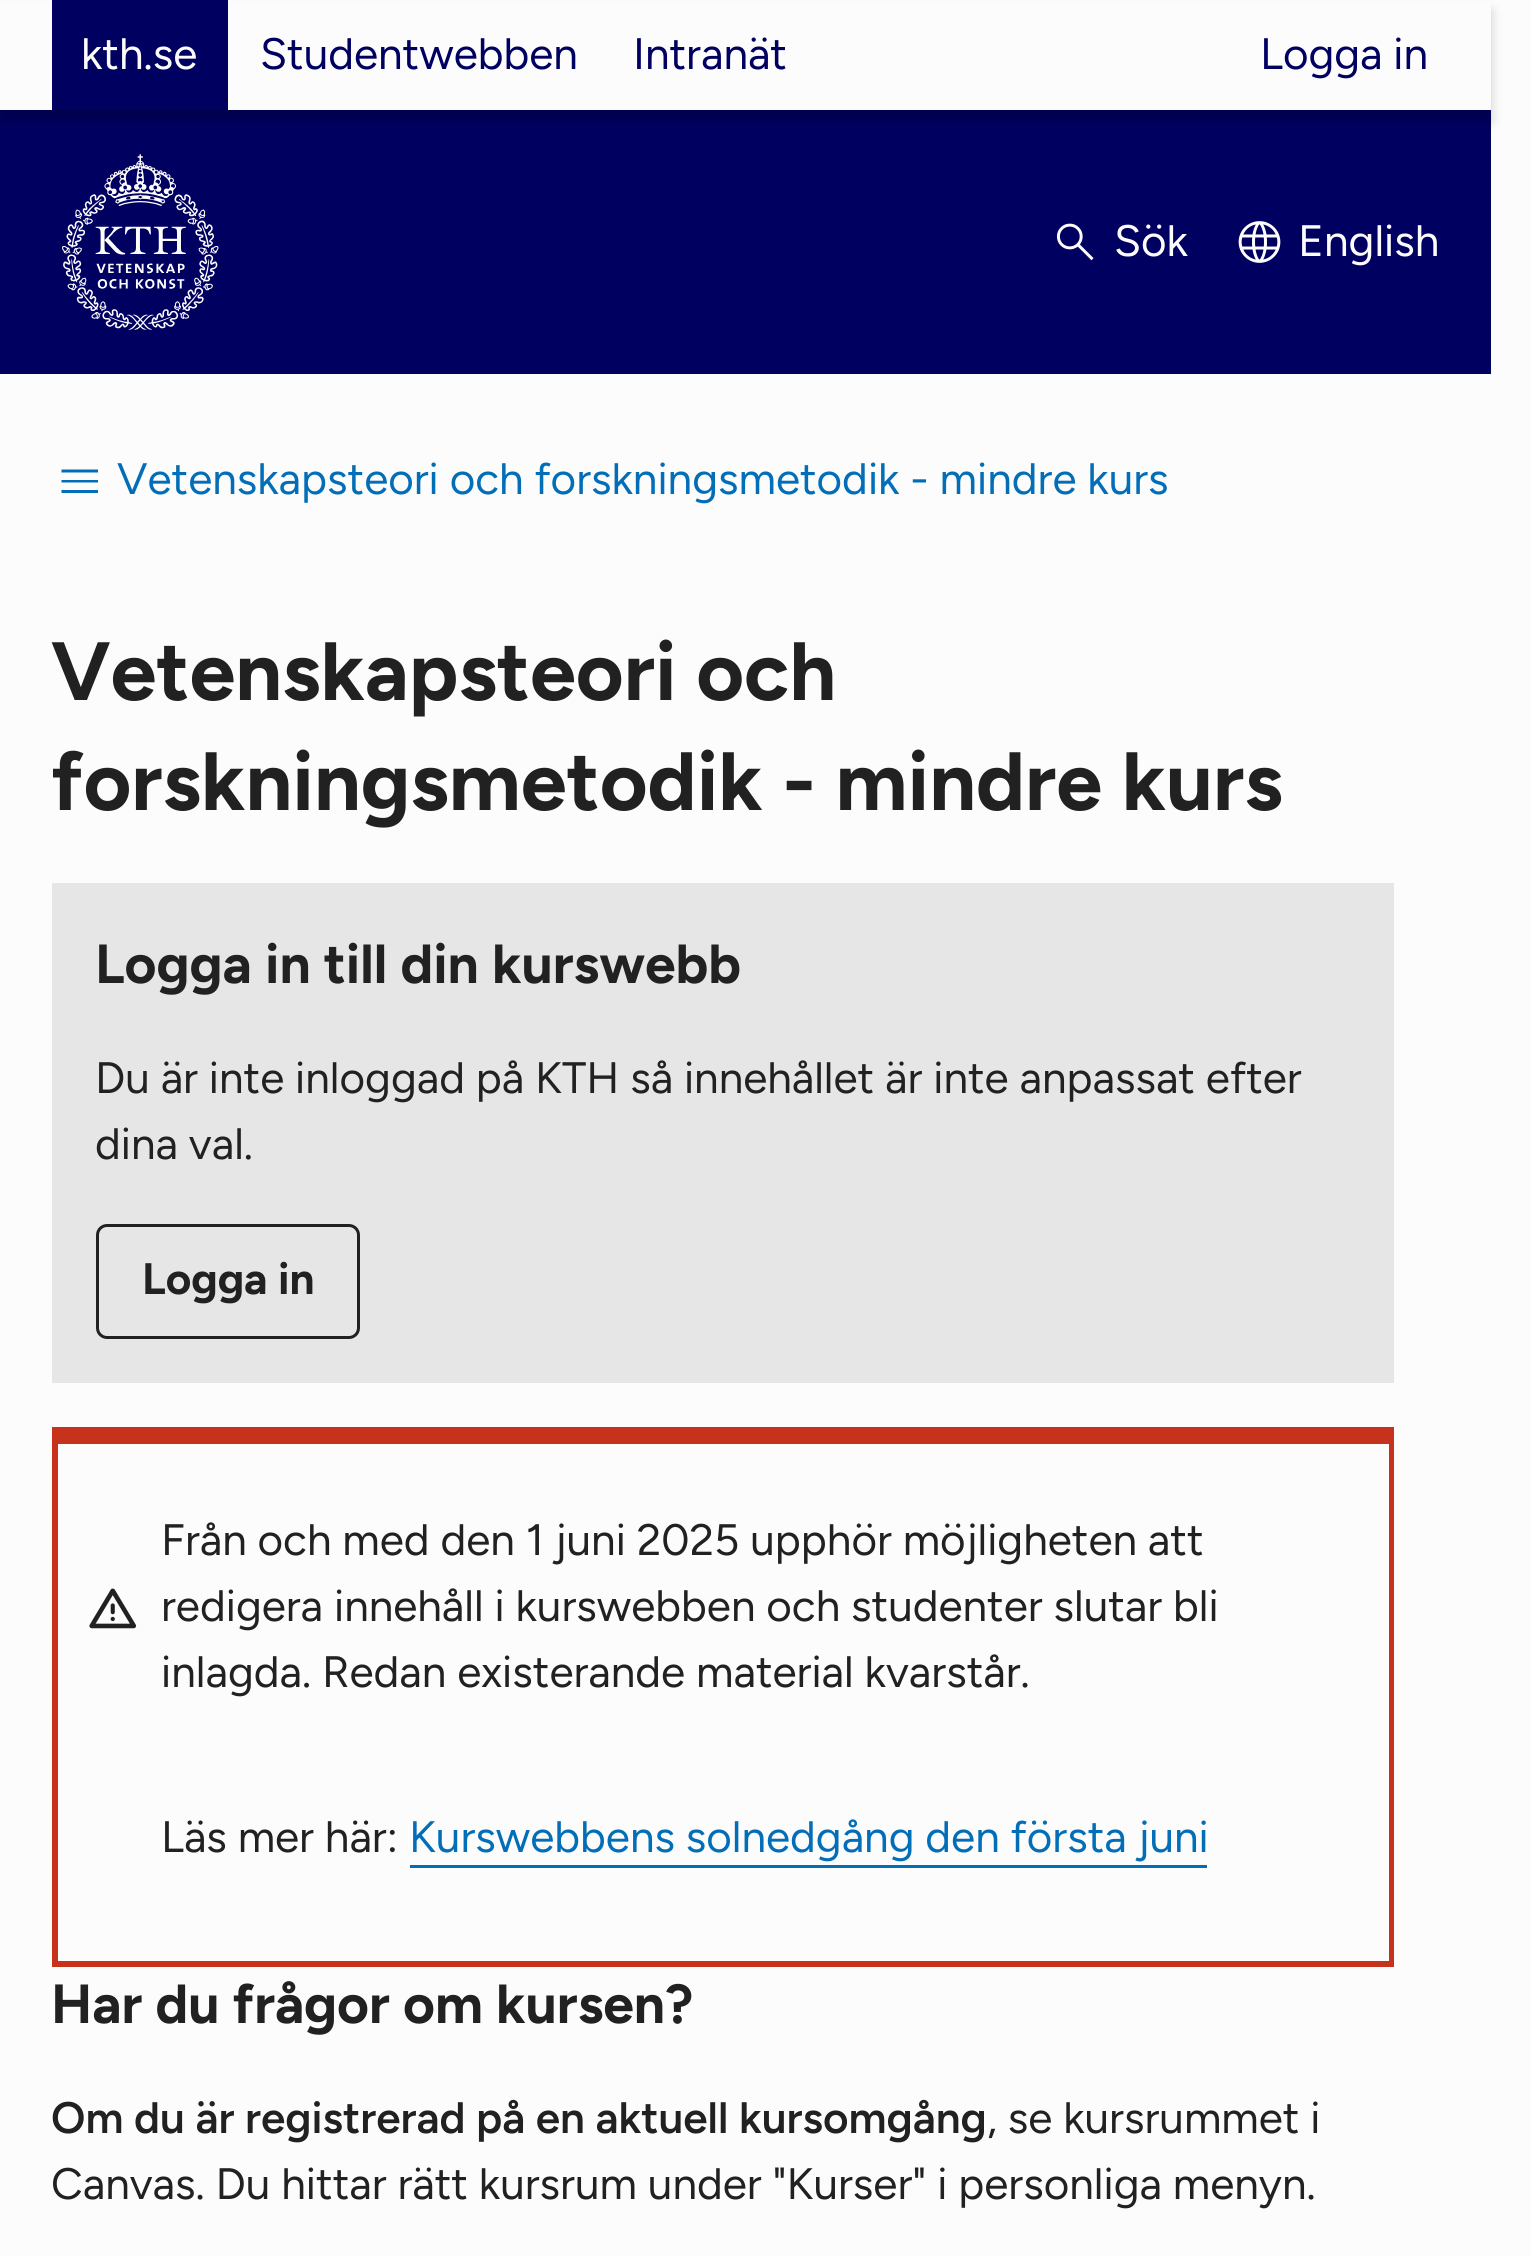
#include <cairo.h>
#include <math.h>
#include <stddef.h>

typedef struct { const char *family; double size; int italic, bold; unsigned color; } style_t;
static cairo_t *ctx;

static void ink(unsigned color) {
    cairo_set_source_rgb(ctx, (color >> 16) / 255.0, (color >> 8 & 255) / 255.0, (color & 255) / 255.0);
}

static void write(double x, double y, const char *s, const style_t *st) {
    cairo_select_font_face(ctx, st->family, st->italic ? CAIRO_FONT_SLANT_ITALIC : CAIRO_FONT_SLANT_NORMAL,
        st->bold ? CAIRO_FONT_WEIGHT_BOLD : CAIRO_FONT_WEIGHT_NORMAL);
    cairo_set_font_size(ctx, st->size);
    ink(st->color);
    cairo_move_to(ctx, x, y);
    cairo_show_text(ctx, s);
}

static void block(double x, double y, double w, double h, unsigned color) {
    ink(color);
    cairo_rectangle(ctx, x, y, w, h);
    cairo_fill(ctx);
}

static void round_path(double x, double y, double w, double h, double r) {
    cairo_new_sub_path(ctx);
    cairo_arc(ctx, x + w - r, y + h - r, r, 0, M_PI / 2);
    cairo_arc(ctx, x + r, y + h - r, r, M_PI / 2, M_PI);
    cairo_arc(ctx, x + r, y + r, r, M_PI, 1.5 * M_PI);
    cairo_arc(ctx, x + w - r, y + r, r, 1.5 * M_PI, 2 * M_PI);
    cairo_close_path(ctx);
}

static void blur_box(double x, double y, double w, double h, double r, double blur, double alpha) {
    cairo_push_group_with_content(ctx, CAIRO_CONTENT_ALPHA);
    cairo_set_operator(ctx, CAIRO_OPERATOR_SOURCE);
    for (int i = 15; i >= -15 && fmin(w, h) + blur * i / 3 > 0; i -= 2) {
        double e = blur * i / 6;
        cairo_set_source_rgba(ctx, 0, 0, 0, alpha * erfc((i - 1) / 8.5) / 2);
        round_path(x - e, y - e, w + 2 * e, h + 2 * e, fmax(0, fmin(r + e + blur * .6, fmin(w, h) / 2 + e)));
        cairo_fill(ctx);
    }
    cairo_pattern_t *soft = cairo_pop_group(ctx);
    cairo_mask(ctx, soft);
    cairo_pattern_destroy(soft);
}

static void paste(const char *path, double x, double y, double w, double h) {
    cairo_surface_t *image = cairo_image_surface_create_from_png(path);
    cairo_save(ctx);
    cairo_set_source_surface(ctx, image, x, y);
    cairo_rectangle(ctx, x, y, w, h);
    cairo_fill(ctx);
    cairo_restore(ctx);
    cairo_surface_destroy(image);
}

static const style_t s1 = {"Figtree", 44, 0, 0, 0xfcfcfc};
static const style_t s2 = {"Figtree", 44, 0, 0, 0x000061};
static const style_t s3 = {"Figtree", 44, 0, 0, 0x036eb8};
static const style_t s4 = {"Figtree", 82.5, 0, 1, 0x212121};
static const style_t s5 = {"Figtree", 55, 0, 1, 0x212121};
static const style_t s6 = {"Figtree", 44, 0, 0, 0x212121};
static const style_t s7 = {"Figtree", 44, 0, 1, 0x212121};
static const style_t s8 = {"Figtree SemiBold", 44, 0, 0, 0x212121};

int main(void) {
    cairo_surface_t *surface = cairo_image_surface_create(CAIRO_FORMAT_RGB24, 1531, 2256);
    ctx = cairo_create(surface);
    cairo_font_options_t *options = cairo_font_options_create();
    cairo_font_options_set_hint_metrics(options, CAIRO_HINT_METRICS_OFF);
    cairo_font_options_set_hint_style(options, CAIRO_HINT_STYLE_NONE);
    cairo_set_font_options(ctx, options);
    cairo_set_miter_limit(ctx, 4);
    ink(0xfcfcfc);
    cairo_paint(ctx);
    block(0, 110, 1491, 264, 0x000061);
    ink(0x000000);
    blur_box(0, 11, 1491, 110, 0, 5.5, 0.2);
    block(0, 2, 1491, 108, 0xfcfcfc);
    block(52, 0, 176, 110, 0x000061);
    write(81, 69, "kth.se", &s1);
    write(260, 69, "Studentwebben", &s2);
    write(633, 69, "Intranät", &s2);
    write(1260, 69, "Logga in", &s2);
    paste("pic1.png", 62, 154, 157, 176);
    paste("pic2.png", 1056, 223, 38, 38);
    write(1114, 256, "Sök", &s1);
    paste("pic3.png", 1238, 221, 43, 42);
    write(1298, 256, "English", &s1);
    ink(0x036eb8);
    cairo_new_path(ctx);
    cairo_move_to(ctx, 61.5, 493);
    cairo_line_to(ctx, 61.5, 490);
    cairo_line_to(ctx, 98, 490);
    cairo_line_to(ctx, 98, 493);
    cairo_close_path(ctx);
    cairo_move_to(ctx, 61.5, 482.5);
    cairo_line_to(ctx, 61.5, 480);
    cairo_line_to(ctx, 98, 480);
    cairo_line_to(ctx, 98, 482.5);
    cairo_close_path(ctx);
    cairo_move_to(ctx, 61.5, 472.5);
    cairo_line_to(ctx, 61.5, 469.5);
    cairo_line_to(ctx, 98, 469.5);
    cairo_line_to(ctx, 98, 472.5);
    cairo_close_path(ctx);
    cairo_fill(ctx);
    write(117, 494, "Vetenskapsteori och forskningsmetodik - mindre kurs", &s3);
    write(51, 700, "Vetenskapsteori och", &s4);
    write(51, 810, "forskningsmetodik - mindre kurs", &s4);
    block(52, 883, 1342, 500, 0xe6e6e6);
    write(95, 983, "Logga in till din kurswebb", &s5);
    write(95, 1093, "Du är inte inloggad på KTH så innehållet är inte anpassat efter", &s6);
    write(95, 1159, "dina val.", &s6);
    round_path(97.5, 1225.5, 261, 112, 9.5);
    cairo_set_line_width(ctx, 3);
    cairo_stroke(ctx);
    write(142, 1294, "Logga in", &s7);
    block(58, 1427, 1331, 17, 0xc7321d);
    block(1389, 1427, 5, 539, 0xc7321d);
    block(52, 1961, 1342, 6, 0xc7321d);
    block(52, 1427, 6, 539, 0xc7321d);
    paste("pic4.png", 89, 1588, 48, 41);
    write(161, 1555, "Från och med den 1 juni 2025 upphör möjligheten att", &s6);
    write(161, 1621, "redigera innehåll i kurswebben och studenter slutar bli", &s6);
    write(161, 1687, "inlagda. Redan existerande material kvarstår.", &s6);
    write(161, 1852, "Läs mer här:", &s6);
    write(409, 1852, "Kurswebbens solnedgång den första juni", &s3);
    block(410, 1865, 797, 3, 0x036eb8);
    write(51, 2023, "Har du frågor om kursen?", &s5);
    write(51, 2133, "Om du är registrerad på en aktuell kursomgång", &s8);
    write(987, 2133, ", se kursrummet i", &s6);
    write(51, 2199, "Canvas. Du hittar rätt kursrum under \"Kurser\" i personliga menyn.", &s6);
    cairo_surface_write_to_png(surface, "screenshot.png");
    cairo_font_options_destroy(options);
    cairo_destroy(ctx);
    cairo_surface_destroy(surface);
    return 0;
}
